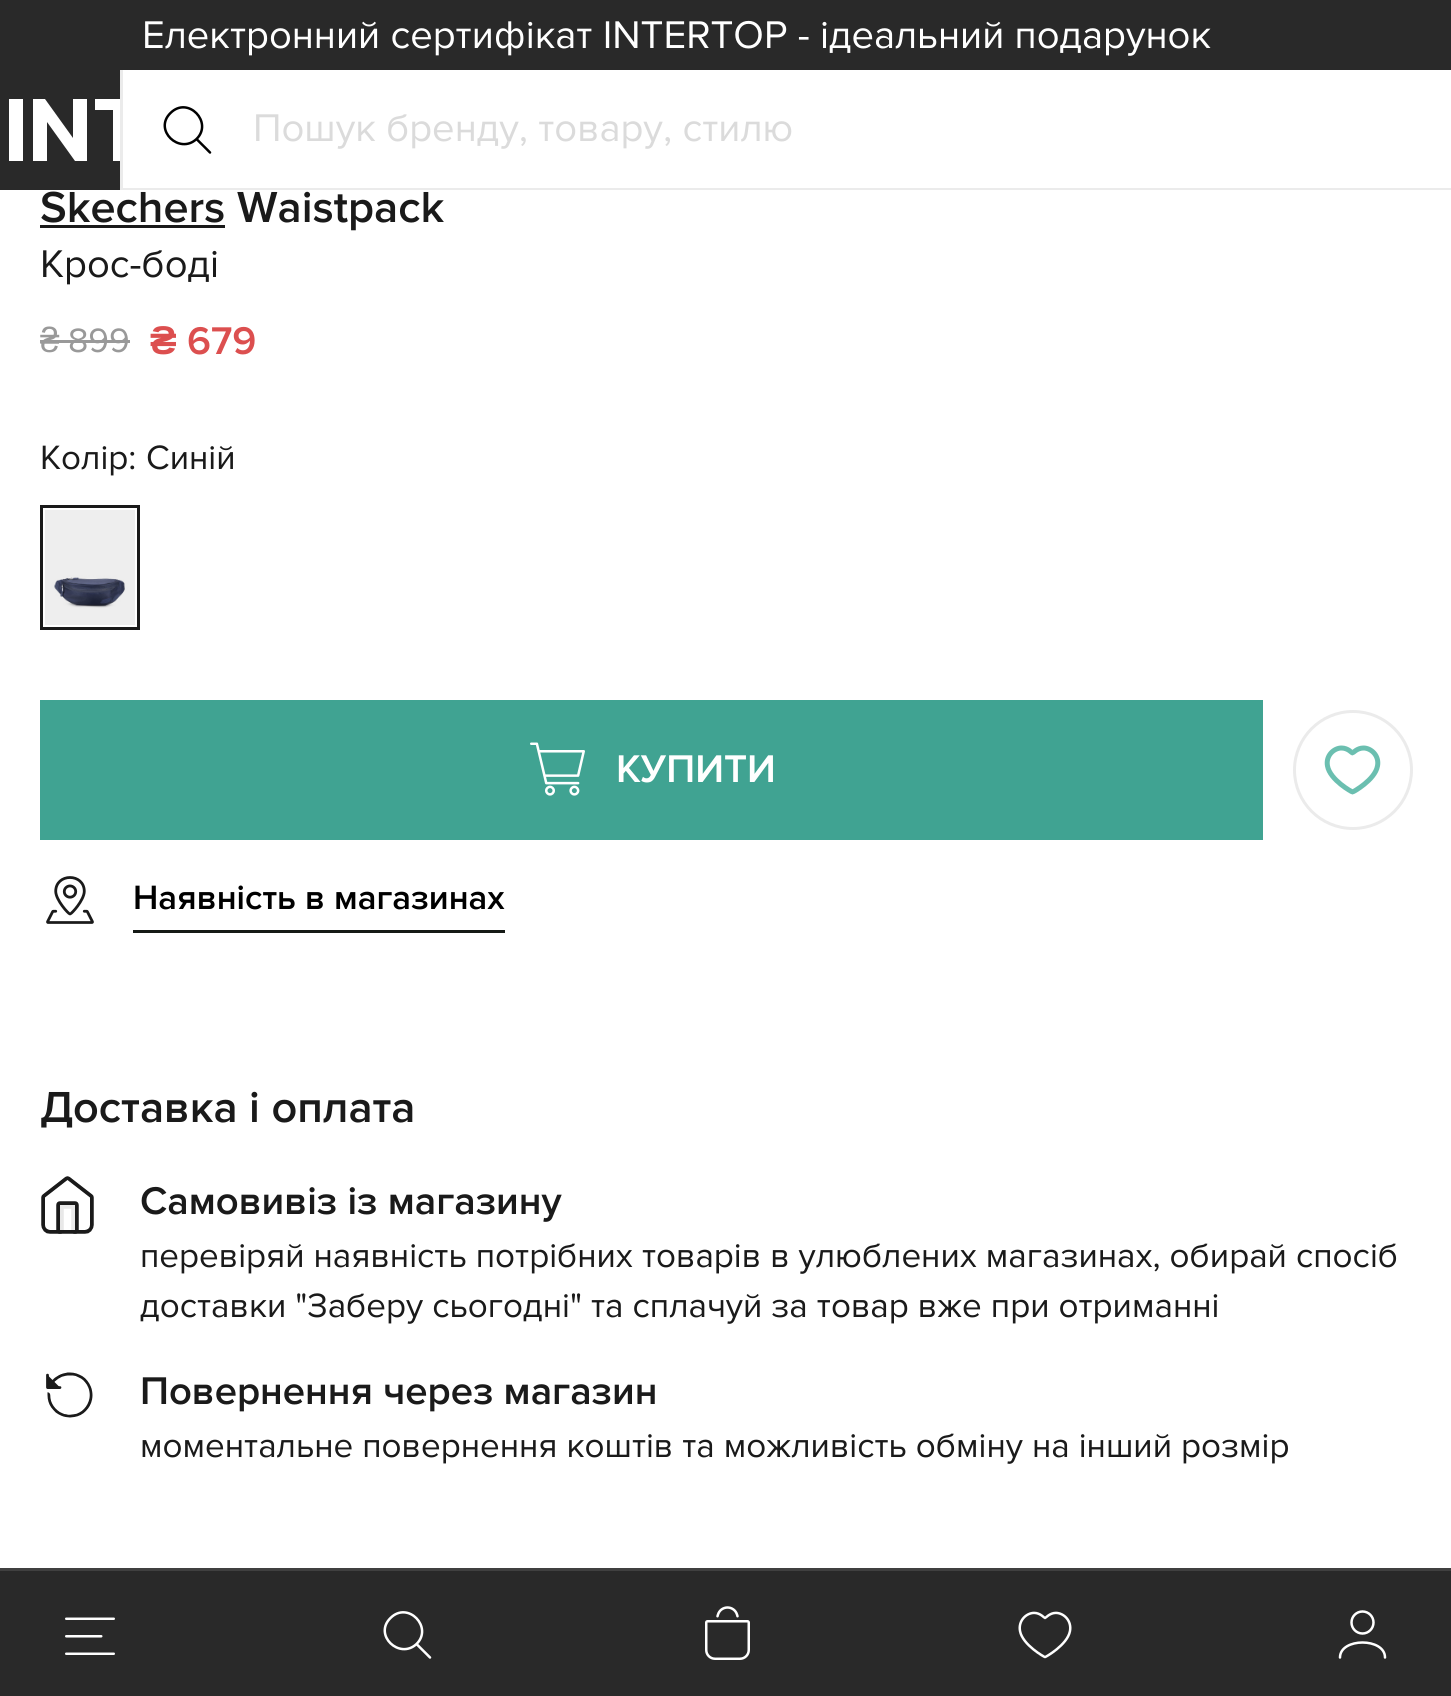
#include <cairo.h>
#include <math.h>
#include <stddef.h>

typedef struct { const char *family; double size; int italic, bold; unsigned color; } style_t;
static cairo_t *ctx;

static void ink(unsigned color) {
    cairo_set_source_rgb(ctx, (color >> 16) / 255.0, (color >> 8 & 255) / 255.0, (color & 255) / 255.0);
}

static void write(double x, double y, const char *s, const style_t *st) {
    cairo_select_font_face(ctx, st->family, st->italic ? CAIRO_FONT_SLANT_ITALIC : CAIRO_FONT_SLANT_NORMAL,
        st->bold ? CAIRO_FONT_WEIGHT_BOLD : CAIRO_FONT_WEIGHT_NORMAL);
    cairo_set_font_size(ctx, st->size);
    ink(st->color);
    cairo_move_to(ctx, x, y);
    cairo_show_text(ctx, s);
}

static void block(double x, double y, double w, double h, unsigned color) {
    ink(color);
    cairo_rectangle(ctx, x, y, w, h);
    cairo_fill(ctx);
}

static void paste(const char *path, double x, double y, double w, double h) {
    cairo_surface_t *image = cairo_image_surface_create_from_png(path);
    cairo_save(ctx);
    cairo_set_source_surface(ctx, image, x, y);
    cairo_rectangle(ctx, x, y, w, h);
    cairo_fill(ctx);
    cairo_restore(ctx);
    cairo_surface_destroy(image);
}

static const style_t s1 = {"Proxima Nova", 40, 0, 0, 0xffffff};
static const style_t s2 = {"Proxima Nova", 40, 0, 0, 0xdbdbdb};
static const style_t s3 = {"Proxima Nova SemiBold", 45, 0, 0, 0x1a1a1a};
static const style_t s4 = {"Proxima Nova", 40, 0, 0, 0x1a1a1a};
static const style_t s5 = {"Liberation Sans", 35, 0, 0, 0x999999};
static const style_t s6 = {"Proxima Nova", 35, 0, 0, 0x999999};
static const style_t s7 = {"Liberation Sans", 40, 0, 1, 0xdc4f4f};
static const style_t s8 = {"Proxima Nova SemiBold", 40, 0, 0, 0xdc4f4f};
static const style_t s9 = {"Proxima Nova", 35, 0, 0, 0x1a1a1a};
static const style_t s10 = {"Proxima Nova SemiBold", 40, 0, 0, 0xffffff};
static const style_t s11 = {"Proxima Nova SemiBold", 35, 0, 0, 0x000000};
static const style_t s12 = {"Proxima Nova SemiBold", 40, 0, 0, 0x1a1a1a};

int main(void) {
    cairo_surface_t *surface = cairo_image_surface_create(CAIRO_FORMAT_RGB24, 1451, 1696);
    ctx = cairo_create(surface);
    cairo_font_options_t *options = cairo_font_options_create();
    cairo_font_options_set_hint_metrics(options, CAIRO_HINT_METRICS_OFF);
    cairo_font_options_set_hint_style(options, CAIRO_HINT_STYLE_NONE);
    cairo_set_font_options(ctx, options);
    cairo_set_miter_limit(ctx, 4);
    ink(0xffffff);
    cairo_paint(ctx);
    block(0, 0, 1451, 70, 0x292929);
    write(142, 48, "Електронний сертифікат INTERTOP - ідеальний подарунок", &s1);
    ink(0x292929);
    cairo_new_path(ctx);
    cairo_move_to(ctx, 113, 161);
    cairo_line_to(ctx, 113, 110);
    cairo_line_to(ctx, 95, 110);
    cairo_line_to(ctx, 95, 99);
    cairo_line_to(ctx, 120, 99);
    cairo_line_to(ctx, 120, 70);
    cairo_line_to(ctx, 0, 70);
    cairo_line_to(ctx, 0, 190);
    cairo_line_to(ctx, 120, 190);
    cairo_line_to(ctx, 120, 161);
    cairo_close_path(ctx);
    cairo_move_to(ctx, 23, 161);
    cairo_line_to(ctx, 9, 161);
    cairo_line_to(ctx, 9, 99);
    cairo_line_to(ctx, 23, 99);
    cairo_close_path(ctx);
    cairo_move_to(ctx, 87, 161);
    cairo_line_to(ctx, 75, 161);
    cairo_line_to(ctx, 47, 122);
    cairo_line_to(ctx, 47, 161);
    cairo_line_to(ctx, 33, 161);
    cairo_line_to(ctx, 33, 99);
    cairo_line_to(ctx, 45, 99);
    cairo_line_to(ctx, 73, 138);
    cairo_line_to(ctx, 73, 99);
    cairo_line_to(ctx, 87, 99);
    cairo_close_path(ctx);
    cairo_fill(ctx);
    block(120, 188, 1331, 2, 0xebebeb);
    block(120, 70, 3, 120, 0xebebeb);
    cairo_new_path(ctx);
    cairo_move_to(ctx, 196.5, 139);
    cairo_curve_to(ctx, 213.5, 122.5, 188, 95.5, 170.5, 113);
    cairo_curve_to(ctx, 153, 130, 179.5, 155, 196.5, 139);
    cairo_close_path(ctx);
    cairo_move_to(ctx, 196.5, 139);
    cairo_line_to(ctx, 210, 152.5);
    ink(0x000000);
    cairo_set_line_width(ctx, 2.5);
    cairo_set_line_cap(ctx, CAIRO_LINE_CAP_ROUND);
    cairo_stroke(ctx);
    write(253, 141, "Пошук бренду, товару, стилю", &s2);
    block(40, 225, 185, 3, 0x1a1a1a);
    write(40, 222, "Skechers Waistpack", &s3);
    write(40, 277, "Крос-боді", &s4);
    write(40, 352, "₴", &s5);
    write(68, 352, "899", &s6);
    block(40, 340, 90, 3, 0x999999);
    write(150, 354, "₴", &s7);
    write(187, 354, "679", &s8);
    write(40, 469, "Колір:", &s9);
    write(146, 469, "Синій", &s9);
    cairo_rectangle(ctx, 41.5, 506.5, 97, 122);
    cairo_set_line_width(ctx, 3);
    cairo_set_line_cap(ctx, CAIRO_LINE_CAP_BUTT);
    cairo_stroke(ctx);
    paste("pic1.png", 45, 510, 90, 115);
    block(40, 700, 1223, 140, 0x40a392);
    paste("pic2.png", 530, 742, 55, 54);
    write(616, 782, "КУПИТИ", &s10);
    cairo_new_path(ctx);
    cairo_arc(ctx, 1353, 770, 58.5, 0, 2 * M_PI);
    ink(0xebebeb);
    cairo_stroke(ctx);
    cairo_new_path(ctx);
    cairo_move_to(ctx, 1341.5, 748);
    cairo_curve_to(ctx, 1334, 748, 1325.5, 755.5, 1327.5, 766);
    cairo_curve_to(ctx, 1330, 780, 1352, 792, 1352.5, 792);
    cairo_curve_to(ctx, 1353, 792, 1375, 780, 1377.5, 766);
    cairo_curve_to(ctx, 1379.5, 755.5, 1371, 748, 1363.5, 748);
    cairo_curve_to(ctx, 1357, 748, 1353, 753, 1352.5, 753);
    cairo_curve_to(ctx, 1352, 753, 1348, 748, 1341.5, 748);
    cairo_close_path(ctx);
    ink(0x6bbfb0);
    cairo_set_line_width(ctx, 5);
    cairo_stroke(ctx);
    paste("pic3.png", 46, 876, 48, 48);
    block(133, 930, 372, 3, 0x151a16);
    write(133, 909, "Наявність в магазинах", &s11);
    write(40, 1122, "Доставка і оплата", &s3);
    paste("pic4.png", 41, 1176, 53, 58);
    write(140, 1214, "Самовивіз із магазину", &s12);
    write(140, 1267, "перевіряй наявність потрібних товарів в улюблених магазинах, обирай спосіб", &s9);
    write(140, 1317, "доставки \"Заберу сьогодні\" та сплачуй за товар вже при отриманні", &s9);
    paste("pic5.png", 46, 1372, 47, 46);
    write(140, 1404, "Повернення через магазин", &s12);
    write(140, 1457, "моментальне повернення коштів та можливість обміну на інший розмір", &s9);
    block(0, 1571, 1451, 125, 0x292929);
    block(0, 1568, 1451, 3, 0x404040);
    paste("pic6.png", 65, 1617, 50, 38);
    cairo_new_path(ctx);
    cairo_move_to(ctx, 416.5, 1644);
    cairo_curve_to(ctx, 433.5, 1627.5, 408, 1600.5, 390.5, 1618);
    cairo_curve_to(ctx, 373, 1635, 399.5, 1660, 416.5, 1644);
    cairo_close_path(ctx);
    cairo_move_to(ctx, 416.5, 1644);
    cairo_line_to(ctx, 430, 1657.5);
    ink(0xffffff);
    cairo_set_line_width(ctx, 2.5);
    cairo_set_line_cap(ctx, CAIRO_LINE_CAP_ROUND);
    cairo_stroke(ctx);
    paste("pic7.png", 705, 1606, 45, 54);
    paste("pic8.png", 1018, 1611, 54, 48);
    cairo_arc(ctx, 1362.5, 1622.5, 11, 0, 2 * M_PI);
    cairo_set_line_cap(ctx, CAIRO_LINE_CAP_BUTT);
    cairo_stroke(ctx);
    cairo_new_path(ctx);
    cairo_move_to(ctx, 1385, 1657.5);
    cairo_curve_to(ctx, 1385, 1637.5, 1340, 1637.5, 1340, 1657.5);
    cairo_set_line_cap(ctx, CAIRO_LINE_CAP_ROUND);
    cairo_stroke(ctx);
    cairo_surface_write_to_png(surface, "screenshot.png");
    cairo_font_options_destroy(options);
    cairo_destroy(ctx);
    cairo_surface_destroy(surface);
    return 0;
}
